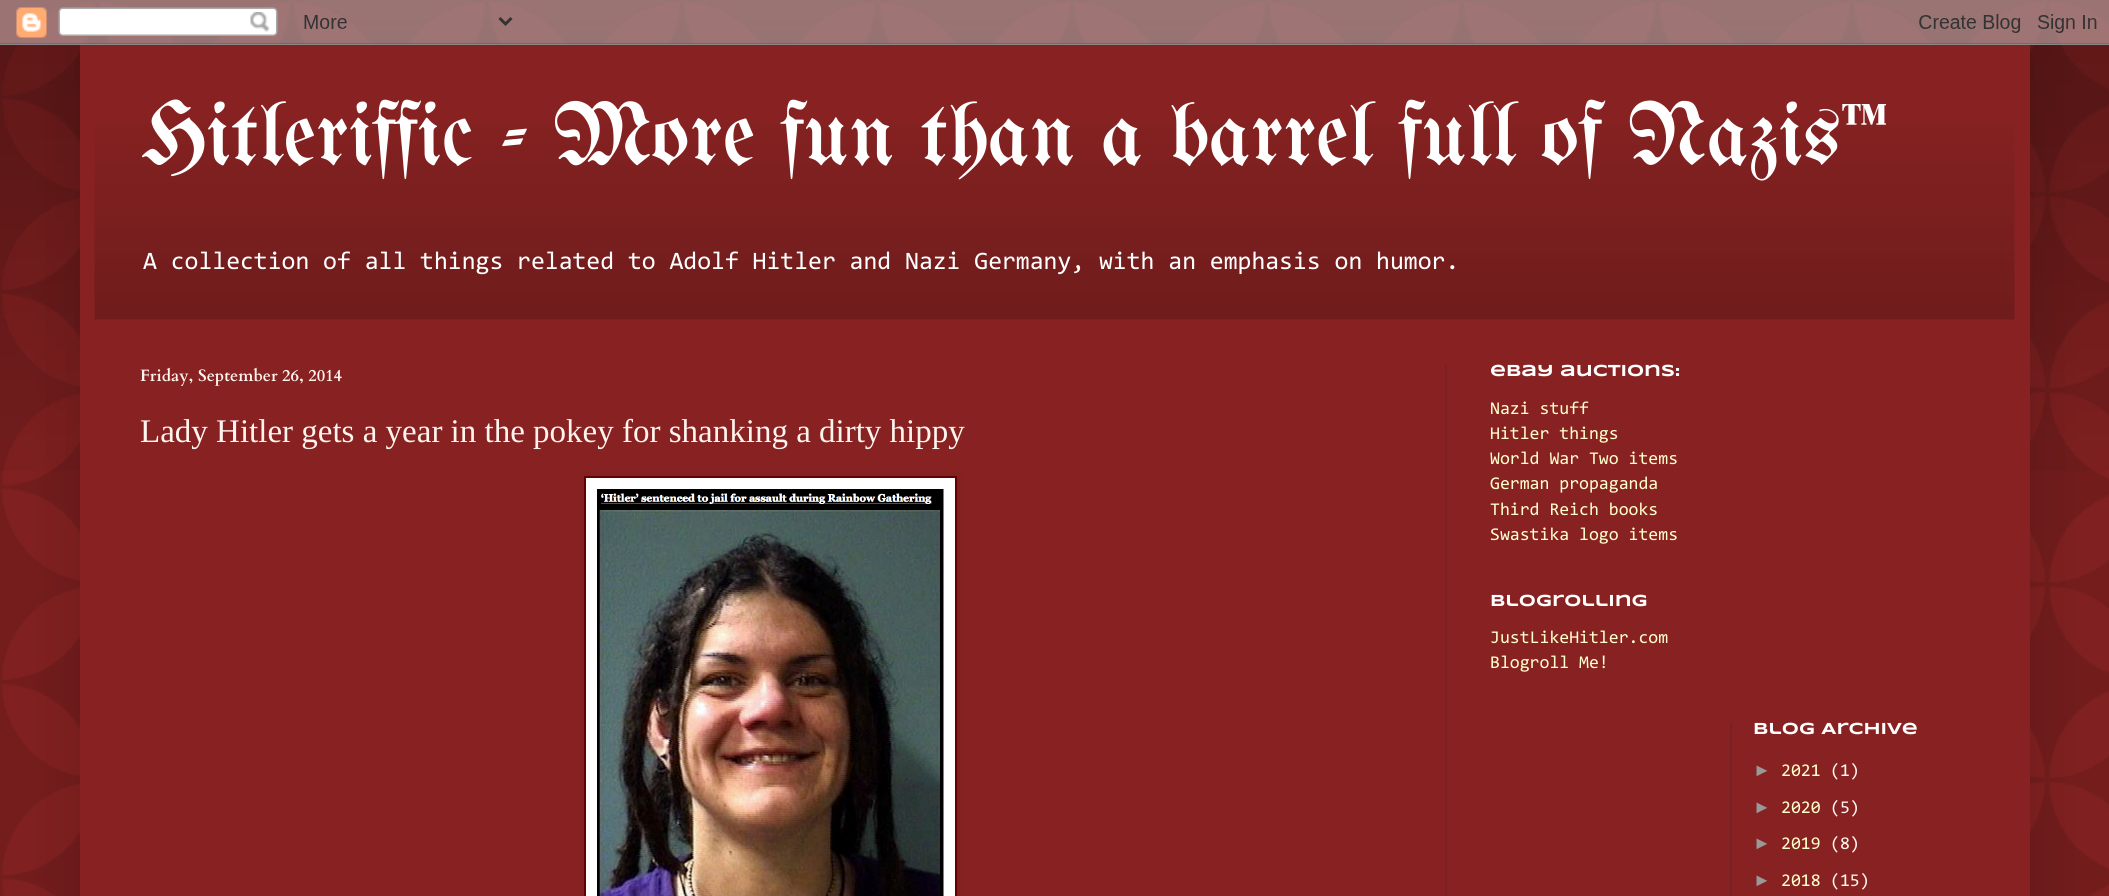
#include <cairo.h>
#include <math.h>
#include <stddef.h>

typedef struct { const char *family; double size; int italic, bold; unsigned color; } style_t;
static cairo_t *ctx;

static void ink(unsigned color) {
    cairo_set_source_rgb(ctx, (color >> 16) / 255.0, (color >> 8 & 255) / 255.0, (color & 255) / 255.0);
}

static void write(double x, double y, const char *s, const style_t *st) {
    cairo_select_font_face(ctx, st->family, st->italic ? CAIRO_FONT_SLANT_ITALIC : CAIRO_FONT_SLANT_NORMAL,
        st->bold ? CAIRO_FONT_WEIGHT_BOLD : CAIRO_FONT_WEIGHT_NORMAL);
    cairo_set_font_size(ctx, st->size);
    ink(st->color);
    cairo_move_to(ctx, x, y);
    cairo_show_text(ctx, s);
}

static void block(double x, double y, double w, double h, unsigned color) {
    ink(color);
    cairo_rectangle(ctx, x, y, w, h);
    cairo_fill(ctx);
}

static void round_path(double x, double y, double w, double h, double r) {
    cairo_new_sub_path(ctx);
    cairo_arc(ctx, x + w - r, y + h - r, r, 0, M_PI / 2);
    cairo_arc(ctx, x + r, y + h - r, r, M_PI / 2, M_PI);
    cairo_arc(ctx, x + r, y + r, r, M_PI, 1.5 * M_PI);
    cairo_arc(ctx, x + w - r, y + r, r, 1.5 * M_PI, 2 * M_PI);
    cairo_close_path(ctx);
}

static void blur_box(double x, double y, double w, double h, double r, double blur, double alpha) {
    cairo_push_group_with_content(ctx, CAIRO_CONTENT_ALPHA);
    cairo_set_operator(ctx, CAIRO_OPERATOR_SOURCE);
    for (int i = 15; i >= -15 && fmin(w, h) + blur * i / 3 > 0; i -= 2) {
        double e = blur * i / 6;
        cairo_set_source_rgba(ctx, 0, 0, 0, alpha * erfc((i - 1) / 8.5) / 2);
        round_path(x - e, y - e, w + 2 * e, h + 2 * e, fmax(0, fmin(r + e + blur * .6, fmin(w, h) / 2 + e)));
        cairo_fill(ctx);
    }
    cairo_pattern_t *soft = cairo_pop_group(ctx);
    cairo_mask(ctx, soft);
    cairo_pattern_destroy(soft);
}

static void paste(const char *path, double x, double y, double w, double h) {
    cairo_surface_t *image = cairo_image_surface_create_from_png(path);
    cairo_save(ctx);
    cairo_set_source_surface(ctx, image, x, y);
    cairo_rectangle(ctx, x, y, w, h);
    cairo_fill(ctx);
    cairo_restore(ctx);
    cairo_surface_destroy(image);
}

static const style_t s1 = {"UnifrakturMaguntia", 90, 0, 0, 0xffffff};
static const style_t s2 = {"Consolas", 25.2, 0, 0, 0xffffff};
static const style_t s3 = {"Cardo", 16.5, 0, 1, 0xfff5ee};
static const style_t s4 = {"Tinos", 33, 0, 0, 0xfff5ee};
static const style_t s5 = {"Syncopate", 16.5, 0, 1, 0xffffff};
static const style_t s6 = {"Consolas", 18, 0, 0, 0xffffcc};
static const style_t s7 = {"Liberation Sans", 18, 0, 0, 0x999999};
static const style_t s8 = {"Consolas", 18, 0, 0, 0xfff5ee};

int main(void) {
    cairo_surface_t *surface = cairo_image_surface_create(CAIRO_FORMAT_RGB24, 2109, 896);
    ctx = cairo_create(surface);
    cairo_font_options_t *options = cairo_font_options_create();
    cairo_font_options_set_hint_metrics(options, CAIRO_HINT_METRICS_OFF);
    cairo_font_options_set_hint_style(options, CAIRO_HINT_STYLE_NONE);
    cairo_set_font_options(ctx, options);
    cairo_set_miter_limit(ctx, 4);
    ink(0x882222);
    cairo_paint(ctx);
    paste("pic1.png", 0, 0, 2109, 896);
    paste("pic2.png", 0, 0, 2109, 471);
    ink(0x000000);
    blur_box(80, 45, 1950, 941, 0, 30, 0.15);
    paste("pic3.png", 0, 0, 2109, 45);
    block(80, 45, 1950, 851, 0x882222);
    paste("pic4.png", 94, 123, 1921, 197);
    write(140, 164, "Hitleriffic - More fun than a barrel full of Nazis™", &s1);
    write(143, 269, "A collection of all things related to Adolf Hitler and Nazi Germany, with an emphasis on humor.", &s2);
    write(140, 381, "Friday, September 26, 2014", &s3);
    write(140, 442, "Lady Hitler gets a year in the pokey for shanking a dirty hippy", &s4);
    ink(0x000000);
    blur_box(585, 477, 374, 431, 0, 4, 0.1);
    ink(0xffffff);
    cairo_rectangle(ctx, 585, 477, 371, 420);
    cairo_fill_preserve(ctx);
    ink(0x660000);
    cairo_stroke(ctx);
    paste("pic5.png", 597, 489, 347, 407);
    write(1490, 376, "eBay auctions:", &s5);
    write(1490, 414, "Nazi stuff", &s6);
    write(1490, 439, "Hitler things", &s6);
    write(1490, 464, "World War Two items", &s6);
    write(1490, 489, "German propaganda", &s6);
    write(1490, 515, "Third Reich books", &s6);
    write(1490, 540, "Swastika logo items", &s6);
    write(1490, 606, "Blogrolling", &s5);
    write(1490, 643, "JustLikeHitler.com", &s6);
    write(1490, 668, "Blogroll Me!", &s6);
    block(1730, 722, 2, 174, 0x772222);
    write(1753, 734, "Blog Archive", &s5);
    write(1753, 776, "►", &s7);
    write(1781, 776, "2021", &s6);
    write(1830, 776, "(1)", &s8);
    write(1753, 813, "►", &s7);
    write(1781, 813, "2020", &s6);
    write(1830, 813, "(5)", &s8);
    write(1753, 849, "►", &s7);
    write(1781, 849, "2019", &s6);
    write(1830, 849, "(8)", &s8);
    write(1753, 886, "►", &s7);
    write(1781, 886, "2018", &s6);
    write(1830, 886, "(15)", &s8);
    block(1445, 365, 2, 531, 0x772222);
    cairo_surface_write_to_png(surface, "screenshot.png");
    cairo_font_options_destroy(options);
    cairo_destroy(ctx);
    cairo_surface_destroy(surface);
    return 0;
}
